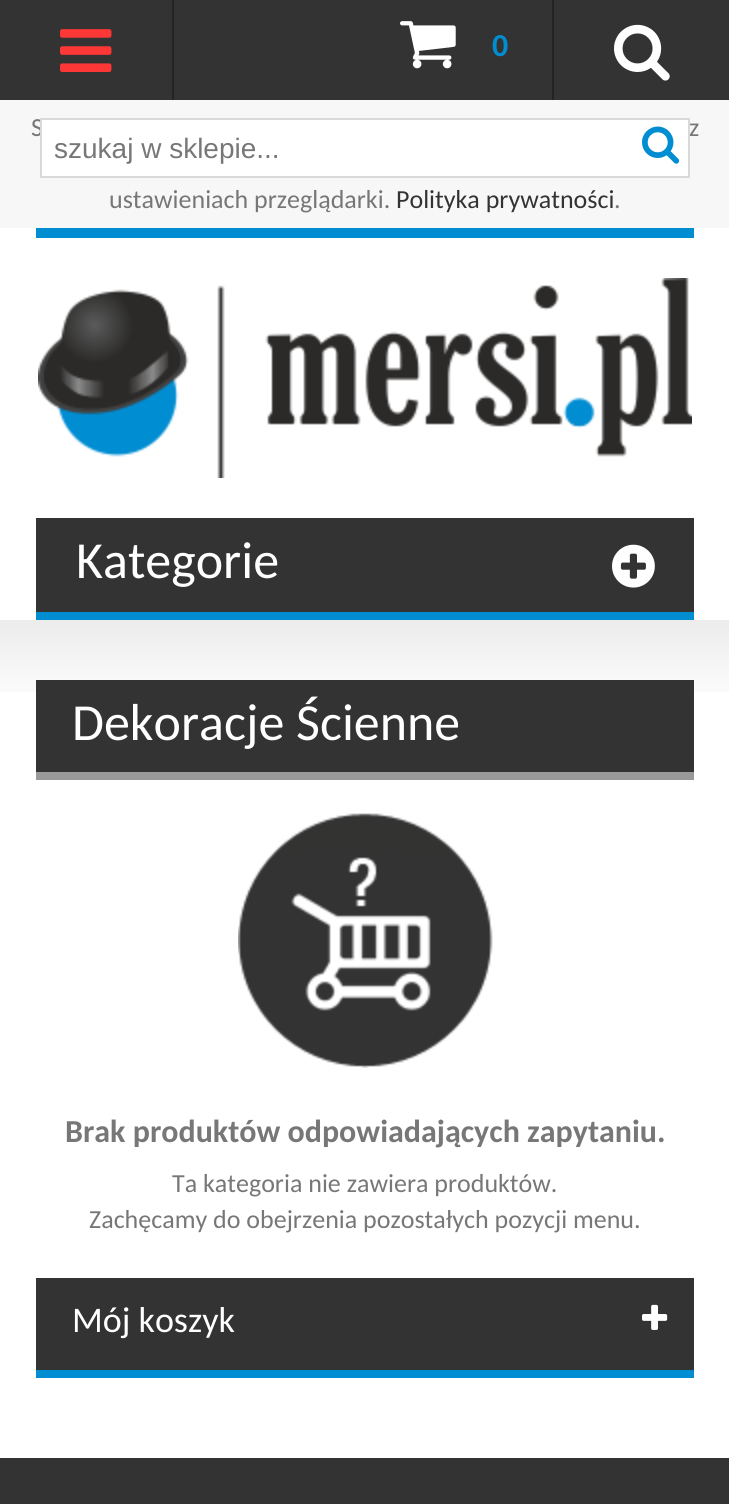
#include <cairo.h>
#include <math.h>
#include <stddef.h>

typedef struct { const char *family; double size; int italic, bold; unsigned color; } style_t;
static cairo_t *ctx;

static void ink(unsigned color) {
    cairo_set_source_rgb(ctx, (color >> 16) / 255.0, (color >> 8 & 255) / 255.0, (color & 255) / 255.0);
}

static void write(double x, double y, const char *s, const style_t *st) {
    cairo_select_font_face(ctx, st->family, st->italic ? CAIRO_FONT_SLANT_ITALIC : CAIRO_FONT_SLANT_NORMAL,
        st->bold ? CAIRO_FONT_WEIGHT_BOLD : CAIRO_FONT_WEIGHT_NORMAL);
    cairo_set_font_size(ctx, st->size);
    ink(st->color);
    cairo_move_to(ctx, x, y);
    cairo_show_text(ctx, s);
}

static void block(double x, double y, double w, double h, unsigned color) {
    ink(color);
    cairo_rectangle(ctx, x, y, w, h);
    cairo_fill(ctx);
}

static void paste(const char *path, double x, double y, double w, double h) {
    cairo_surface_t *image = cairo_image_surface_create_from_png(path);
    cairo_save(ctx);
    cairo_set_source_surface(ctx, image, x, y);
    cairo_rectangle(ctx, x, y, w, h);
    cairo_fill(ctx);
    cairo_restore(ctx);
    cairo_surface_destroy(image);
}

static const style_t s1 = {"Carlito", 32, 0, 1, 0x008dd2};
static const style_t s2 = {"Carlito", 26, 0, 0, 0x777777};
static const style_t s3 = {"Liberation Sans", 28, 0, 0, 0x777777};
static const style_t s4 = {"Carlito", 52, 0, 0, 0xffffff};
static const style_t s5 = {"Carlito", 32, 0, 1, 0x777777};
static const style_t s6 = {"Carlito", 36, 0, 0, 0xffffff};
static const style_t s7 = {"Carlito", 26, 0, 0, 0x333333};

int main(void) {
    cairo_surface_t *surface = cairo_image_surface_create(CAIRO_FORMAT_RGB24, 729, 1504);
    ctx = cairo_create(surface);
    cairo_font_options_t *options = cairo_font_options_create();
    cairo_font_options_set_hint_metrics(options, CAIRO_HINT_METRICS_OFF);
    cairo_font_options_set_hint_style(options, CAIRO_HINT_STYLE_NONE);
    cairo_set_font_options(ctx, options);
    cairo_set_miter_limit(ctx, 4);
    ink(0x333333);
    cairo_paint(ctx);
    block(0, 228, 729, 1230, 0xffffff);
    block(172, 0, 2, 100, 0x232323);
    paste("pic1.png", 60, 29, 52, 43);
    block(552, 0, 2, 100, 0x232323);
    paste("pic2.png", 614, 24, 56, 57);
    block(36, 228, 658, 10, 0x008dd2);
    paste("pic3.png", 400, 21, 56, 48);
    write(492, 56, "0", &s1);
    block(0, 100, 729, 128, 0xf7f7f7);
    write(31, 136, "S", &s2);
    write(689, 136, "z", &s2);
    ink(0xffffff);
    cairo_rectangle(ctx, 41, 119, 648, 58);
    cairo_fill_preserve(ctx);
    ink(0xd9d9d9);
    cairo_stroke(ctx);
    write(54, 158, "szukaj w sklepie...", &s3);
    paste("pic4.png", 642, 126, 38, 38);
    paste("pic5.png", 38, 278, 654, 200);
    block(36, 518, 658, 94, 0x333333);
    block(36, 612, 658, 8, 0x008dd2);
    write(76, 578, "Kategorie", &s4);
    paste("pic6.png", 612, 544, 43, 44);
    paste("pic7.png", 0, 620, 729, 72);
    block(36, 680, 658, 92, 0x333333);
    block(36, 772, 658, 8, 0x999999);
    write(72, 740, "Dekoracje Ścienne", &s4);
    paste("pic8.png", 238, 813, 255, 255);
    write(65, 1142, "Brak produktów odpowiadających zapytaniu.", &s5);
    write(172, 1192, "Ta kategoria nie zawiera produktów.", &s2);
    write(89, 1228, "Zachęcamy do obejrzenia pozostałych pozycji menu.", &s2);
    block(36, 1278, 658, 92, 0x333333);
    block(36, 1370, 658, 8, 0x008dd2);
    write(72, 1332, "Mój koszyk", &s6);
    paste("pic9.png", 642, 1304, 26, 26);
    write(109, 208, "ustawieniach przeglądarki.", &s2);
    write(396, 208, "Polityka prywatności", &s7);
    write(614, 208, ".", &s2);
    cairo_surface_write_to_png(surface, "screenshot.png");
    cairo_font_options_destroy(options);
    cairo_destroy(ctx);
    cairo_surface_destroy(surface);
    return 0;
}
